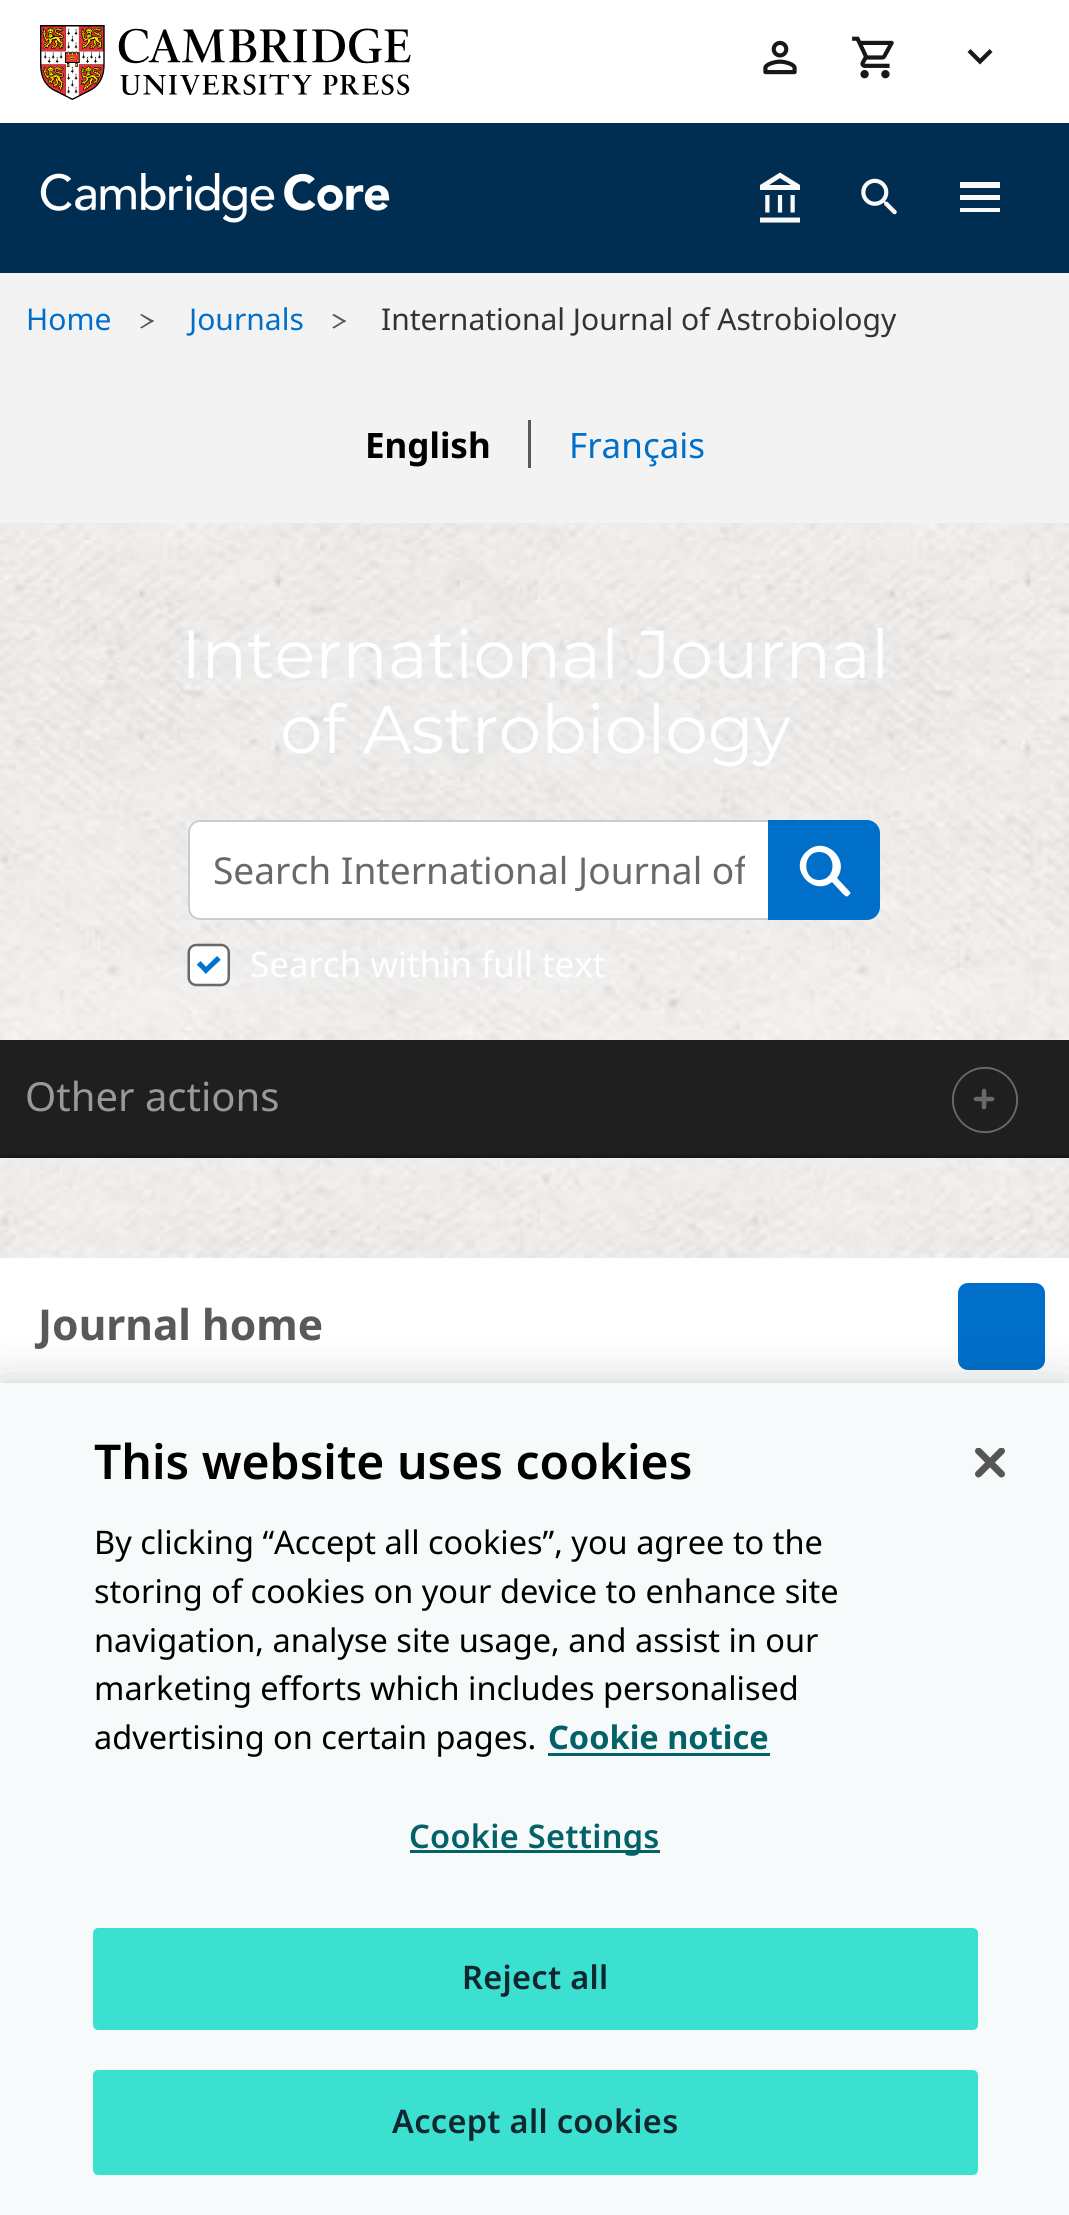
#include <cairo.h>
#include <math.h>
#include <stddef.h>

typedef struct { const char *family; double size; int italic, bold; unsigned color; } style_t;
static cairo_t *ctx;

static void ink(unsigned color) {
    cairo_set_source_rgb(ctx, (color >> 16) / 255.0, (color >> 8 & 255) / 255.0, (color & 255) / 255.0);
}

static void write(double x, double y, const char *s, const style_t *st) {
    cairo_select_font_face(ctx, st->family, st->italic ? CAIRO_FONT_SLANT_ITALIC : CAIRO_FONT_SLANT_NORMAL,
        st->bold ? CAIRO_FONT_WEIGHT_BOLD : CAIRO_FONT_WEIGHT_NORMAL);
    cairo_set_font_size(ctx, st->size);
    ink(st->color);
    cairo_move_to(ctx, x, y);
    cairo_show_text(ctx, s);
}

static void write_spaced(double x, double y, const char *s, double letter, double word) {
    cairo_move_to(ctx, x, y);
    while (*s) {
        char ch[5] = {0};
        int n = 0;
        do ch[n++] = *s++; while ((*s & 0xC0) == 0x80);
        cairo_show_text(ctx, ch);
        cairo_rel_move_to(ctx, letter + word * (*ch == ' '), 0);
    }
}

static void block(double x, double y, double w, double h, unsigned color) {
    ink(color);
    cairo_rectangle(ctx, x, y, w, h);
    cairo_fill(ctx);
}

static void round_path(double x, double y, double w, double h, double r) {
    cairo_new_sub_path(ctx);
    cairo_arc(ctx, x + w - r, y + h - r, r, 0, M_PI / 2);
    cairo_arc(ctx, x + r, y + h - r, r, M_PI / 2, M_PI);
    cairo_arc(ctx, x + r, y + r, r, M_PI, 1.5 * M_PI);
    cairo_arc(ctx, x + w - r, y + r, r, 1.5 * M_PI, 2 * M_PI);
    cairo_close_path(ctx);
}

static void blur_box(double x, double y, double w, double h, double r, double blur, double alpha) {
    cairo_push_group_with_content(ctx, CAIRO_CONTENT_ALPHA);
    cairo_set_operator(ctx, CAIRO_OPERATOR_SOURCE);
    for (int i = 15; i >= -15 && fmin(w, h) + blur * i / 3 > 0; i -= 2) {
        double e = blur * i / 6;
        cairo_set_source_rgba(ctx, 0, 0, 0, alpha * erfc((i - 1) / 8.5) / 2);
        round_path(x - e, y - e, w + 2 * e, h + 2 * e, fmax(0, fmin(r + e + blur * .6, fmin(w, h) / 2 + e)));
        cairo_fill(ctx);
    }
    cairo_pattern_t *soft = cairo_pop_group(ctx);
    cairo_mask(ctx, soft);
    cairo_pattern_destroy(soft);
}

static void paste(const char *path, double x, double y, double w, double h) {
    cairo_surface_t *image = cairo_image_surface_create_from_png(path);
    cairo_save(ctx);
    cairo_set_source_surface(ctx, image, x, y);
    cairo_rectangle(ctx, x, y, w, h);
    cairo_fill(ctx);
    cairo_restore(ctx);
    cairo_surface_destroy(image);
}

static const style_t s1 = {"Noto Sans", 30, 0, 0, 0x006fca};
static const style_t s2 = {"Noto Sans", 30, 0, 0, 0x333333};
static const style_t s3 = {"Noto Sans", 35, 0, 1, 0x000000};
static const style_t s4 = {"Noto Sans", 35, 0, 0, 0x006fca};
static const style_t s5 = {"Montserrat Thin", 67.5, 0, 0, 0xffffff};
static const style_t s6 = {"Noto Sans", 37.1, 0, 0, 0x696969};
static const style_t s7 = {"Noto Sans", 35, 0, 0, 0xffffff};
static const style_t s8 = {"Noto Sans", 40, 0, 0, 0x999999};
static const style_t s9 = {"Noto Sans", 42.5, 0, 1, 0x595959};
static const style_t s10 = {"Noto Sans SemiBold", 48, 0, 0, 0x000000};
static const style_t s11 = {"Noto Sans", 32.5, 0, 0, 0x000000};
static const style_t s12 = {"Noto Sans", 32.5, 0, 1, 0x036268};

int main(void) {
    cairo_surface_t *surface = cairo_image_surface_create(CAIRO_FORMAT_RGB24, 1069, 2215);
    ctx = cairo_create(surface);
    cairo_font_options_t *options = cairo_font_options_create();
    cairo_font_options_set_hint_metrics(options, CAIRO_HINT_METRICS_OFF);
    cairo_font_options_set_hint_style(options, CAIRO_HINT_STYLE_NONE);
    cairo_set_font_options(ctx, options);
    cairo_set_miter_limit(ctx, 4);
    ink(0xffffff);
    cairo_paint(ctx);
    paste("pic1.png", 0, 523, 1069, 735);
    paste("pic2.png", 40, 25, 371, 75);
    paste("pic3.png", 763, 40, 34, 35);
    paste("pic4.png", 852, 36, 42, 43);
    ink(0x181817);
    cairo_new_path(ctx);
    cairo_move_to(ctx, 980, 64.5);
    cairo_line_to(ctx, 967.5, 52);
    cairo_line_to(ctx, 970.5, 49);
    cairo_line_to(ctx, 980, 58.5);
    cairo_line_to(ctx, 989.5, 49);
    cairo_line_to(ctx, 992.5, 52);
    cairo_close_path(ctx);
    cairo_fill(ctx);
    block(0, 123, 1069, 150, 0x002d52);
    paste("pic5.png", 40, 173, 350, 50);
    paste("pic6.png", 760, 172, 40, 51);
    paste("pic7.png", 861, 178, 36, 37);
    block(960, 182, 40, 6, 0xfafafa);
    block(960, 195, 40, 5, 0xfafafa);
    block(960, 208, 40, 4, 0xfafafa);
    block(0, 273, 1069, 250, 0xf3f3f3);
    write(26, 330, "Home", &s1);
    ink(0x505a5f);
    cairo_new_path(ctx);
    cairo_move_to(ctx, 141.5, 314);
    cairo_line_to(ctx, 154, 321);
    cairo_line_to(ctx, 152, 322.5);
    cairo_line_to(ctx, 140, 315);
    cairo_close_path(ctx);
    cairo_fill(ctx);
    cairo_new_path(ctx);
    cairo_move_to(ctx, 152, 320);
    cairo_line_to(ctx, 154, 321);
    cairo_line_to(ctx, 141.5, 328.5);
    cairo_line_to(ctx, 140, 327.5);
    cairo_close_path(ctx);
    cairo_fill(ctx);
    write(189, 330, "Journals", &s1);
    ink(0x505a5f);
    cairo_new_path(ctx);
    cairo_move_to(ctx, 334, 314);
    cairo_line_to(ctx, 346, 321);
    cairo_line_to(ctx, 344.5, 322.5);
    cairo_line_to(ctx, 332, 315);
    cairo_close_path(ctx);
    cairo_fill(ctx);
    cairo_new_path(ctx);
    cairo_move_to(ctx, 344.5, 320);
    cairo_line_to(ctx, 346, 321);
    cairo_line_to(ctx, 334, 328.5);
    cairo_line_to(ctx, 332, 327.5);
    cairo_close_path(ctx);
    cairo_fill(ctx);
    write(381, 330, "International Journal of Astrobiology", &s2);
    write(365, 458, "English", &s3);
    write(569, 458, "Français", &s4);
    block(528, 420, 3, 48, 0x595959);
    write(181, 678, "International Journal", &s5);
    write(280, 753, "of Astrobiology", &s5);
    cairo_new_path(ctx);
    cairo_move_to(ctx, 201, 820);
    cairo_line_to(ctx, 768, 820);
    cairo_line_to(ctx, 768, 920);
    cairo_line_to(ctx, 201, 920);
    cairo_curve_to(ctx, 194, 920, 188, 914, 188, 907);
    cairo_line_to(ctx, 188, 833);
    cairo_curve_to(ctx, 188, 826, 194, 820, 201, 820);
    cairo_close_path(ctx);
    cairo_fill(ctx);
    ink(0xcccccc);
    cairo_set_fill_rule(ctx, CAIRO_FILL_RULE_EVEN_ODD);
    cairo_new_path(ctx);
    cairo_move_to(ctx, 200, 820);
    cairo_line_to(ctx, 768, 820);
    cairo_line_to(ctx, 768, 920);
    cairo_line_to(ctx, 200, 920);
    cairo_curve_to(ctx, 193, 920, 188, 914, 188, 908);
    cairo_line_to(ctx, 188, 832);
    cairo_curve_to(ctx, 188, 826, 193, 820, 200, 820);
    cairo_close_path(ctx);
    cairo_move_to(ctx, 200, 822);
    cairo_line_to(ctx, 768, 822);
    cairo_line_to(ctx, 768, 918);
    cairo_line_to(ctx, 200, 918);
    cairo_curve_to(ctx, 194, 918, 190, 913, 190, 908);
    cairo_line_to(ctx, 190, 832);
    cairo_curve_to(ctx, 190, 827, 194, 822, 200, 822);
    cairo_close_path(ctx);
    cairo_fill(ctx);
    cairo_save(ctx);
    cairo_set_fill_rule(ctx, CAIRO_FILL_RULE_WINDING);
    cairo_rectangle(ctx, 213, 845, 532, 50);
    cairo_clip(ctx);
    write(213, 884, "Search International Journal of", &s6);
    cairo_restore(ctx);
    ink(0xffffff);
    round_path(188, 945, 40, 40, 8);
    cairo_fill(ctx);
    paste("pic8.png", 187, 943, 43, 44);
    write(250, 977, "Search within full text", &s7);
    ink(0x006fca);
    cairo_new_path(ctx);
    cairo_move_to(ctx, 768, 820);
    cairo_line_to(ctx, 867, 820);
    cairo_curve_to(ctx, 874, 820, 880, 826, 880, 833);
    cairo_line_to(ctx, 880, 907);
    cairo_curve_to(ctx, 880, 914, 874, 920, 867, 920);
    cairo_line_to(ctx, 768, 920);
    cairo_close_path(ctx);
    cairo_fill(ctx);
    ink(0xffffff);
    cairo_set_fill_rule(ctx, CAIRO_FILL_RULE_WINDING);
    cairo_new_path(ctx);
    cairo_move_to(ctx, 850, 892);
    cairo_curve_to(ctx, 851, 893, 850, 894, 849, 895);
    cairo_curve_to(ctx, 846, 898, 846, 896, 843, 894);
    cairo_line_to(ctx, 832, 882);
    cairo_curve_to(ctx, 813, 897, 788, 869, 806, 852);
    cairo_curve_to(ctx, 824, 834, 851, 859, 837, 878);
    cairo_close_path(ctx);
    cairo_move_to(ctx, 819, 852);
    cairo_curve_to(ctx, 802, 852, 802, 880, 819, 880);
    cairo_curve_to(ctx, 837, 880, 837, 852, 819, 852);
    cairo_close_path(ctx);
    cairo_fill(ctx);
    block(0, 1040, 1069, 115, 0x1f1f1f);
    block(0, 1155, 1069, 3, 0x181817);
    write(25, 1111, "Other actions", &s8);
    paste("pic9.png", 951, 1066, 68, 68);
    write(38, 1340, "Journal home", &s9);
    ink(0x006fca);
    round_path(958, 1283, 87, 87, 10);
    cairo_fill(ctx);
    ink(0x000000);
    blur_box(0, 1383, 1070, 832, 0, 22.5, 0.2);
    block(0, 1383, 1069, 832, 0xf7fafa);
    write(94, 1479, "This website uses cookies", &s10);
    write(94, 1554, "By clicking “Accept all cookies”, you agree to the", &s11);
    write(94, 1603, "storing of cookies on your device to enhance site", &s11);
    write(94, 1652, "navigation, analyse site usage, and assist in our", &s11);
    write(94, 1700, "marketing efforts which includes personalised", &s11);
    write(94, 1749, "advertising on certain pages.", &s11);
    write(548, 1749, "Cookie notice", &s12);
    block(548, 1753, 222, 3, 0x036268);
    block(410, 1850, 250, 3, 0x036268);
    cairo_select_font_face(ctx, "Noto Sans SemiBold", CAIRO_FONT_SLANT_NORMAL, CAIRO_FONT_WEIGHT_NORMAL);
    write_spaced(409, 1848, "Cookie Settings", 0.3, 0);
    ink(0x3be0d0);
    round_path(94.5, 1929.5, 882, 99, 3.5);
    cairo_fill_preserve(ctx);
    cairo_set_line_width(ctx, 3);
    cairo_stroke(ctx);
    ink(0x112730);
    write_spaced(462, 1989, "Reject all", 0.3, 0);
    ink(0x3be0d0);
    round_path(94.5, 2071.5, 882, 102, 3.5);
    cairo_fill_preserve(ctx);
    cairo_stroke(ctx);
    ink(0x112730);
    write_spaced(392, 2133, "Accept all cookies", 0.3, 0);
    paste("pic10.png", 975, 1448, 30, 30);
    cairo_surface_write_to_png(surface, "screenshot.png");
    cairo_font_options_destroy(options);
    cairo_destroy(ctx);
    cairo_surface_destroy(surface);
    return 0;
}
